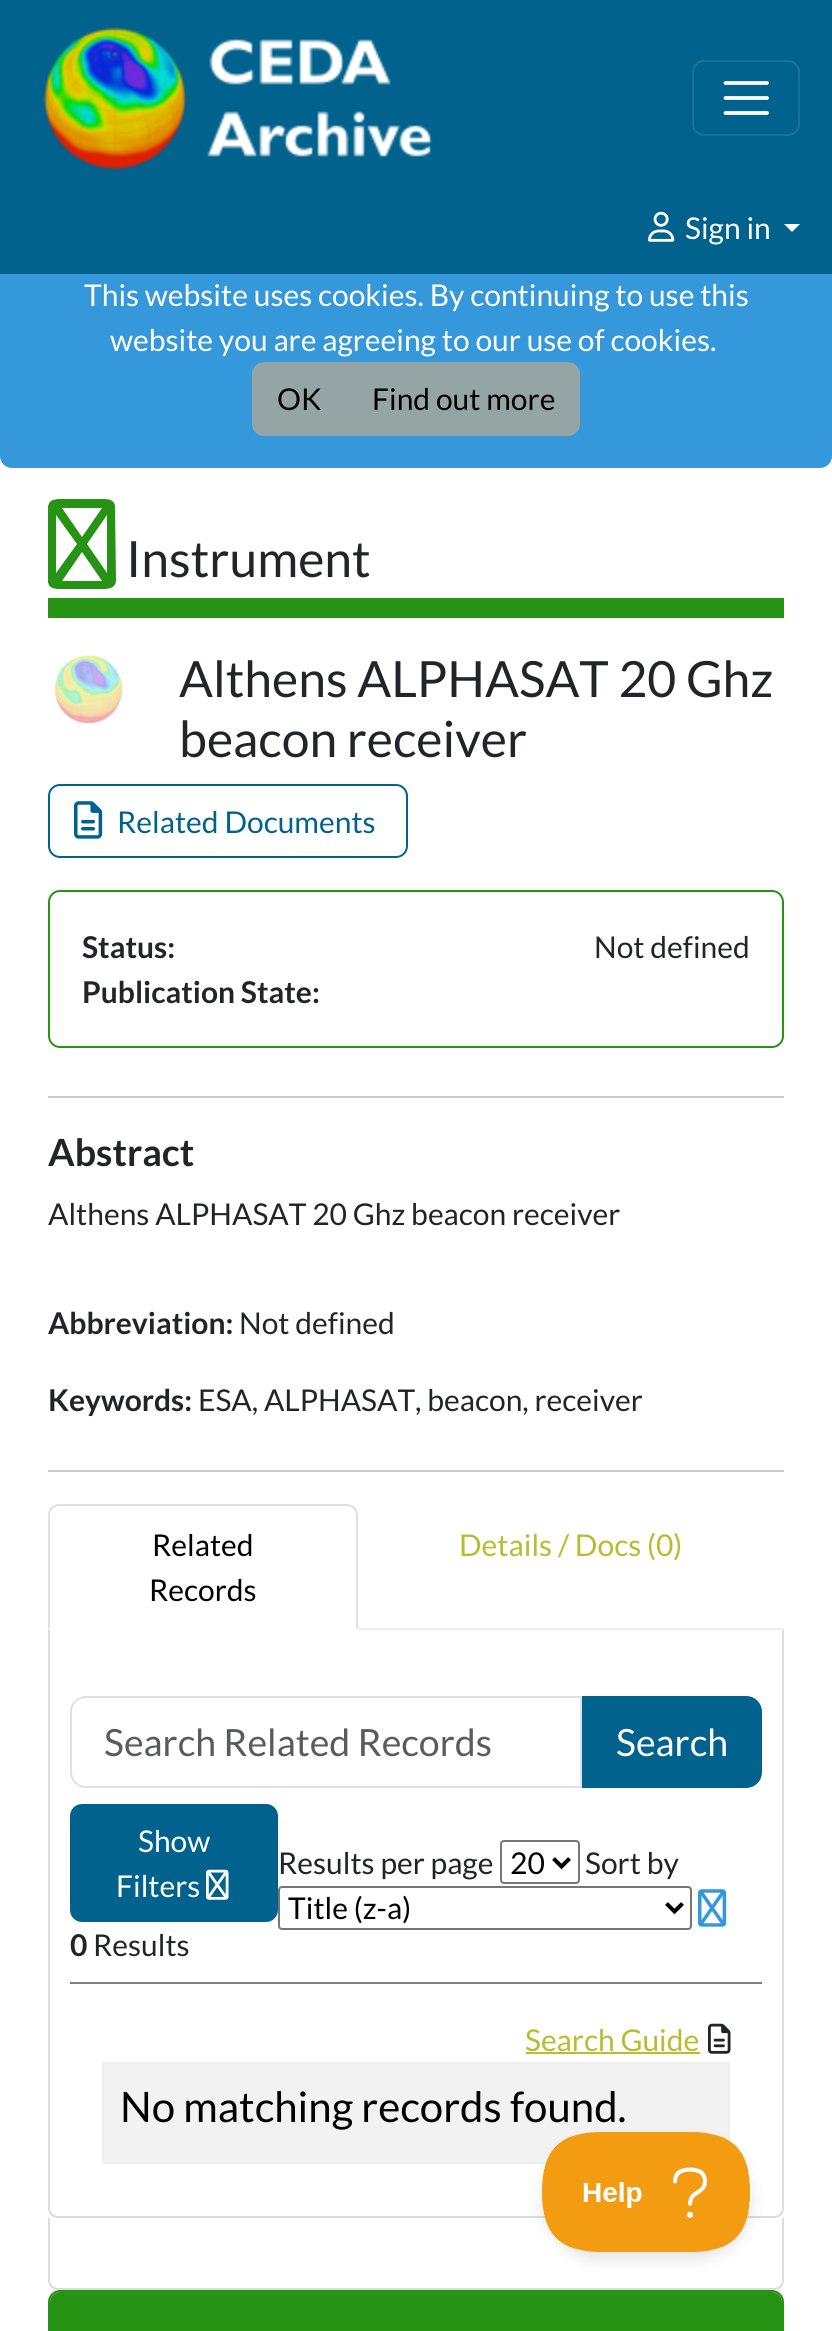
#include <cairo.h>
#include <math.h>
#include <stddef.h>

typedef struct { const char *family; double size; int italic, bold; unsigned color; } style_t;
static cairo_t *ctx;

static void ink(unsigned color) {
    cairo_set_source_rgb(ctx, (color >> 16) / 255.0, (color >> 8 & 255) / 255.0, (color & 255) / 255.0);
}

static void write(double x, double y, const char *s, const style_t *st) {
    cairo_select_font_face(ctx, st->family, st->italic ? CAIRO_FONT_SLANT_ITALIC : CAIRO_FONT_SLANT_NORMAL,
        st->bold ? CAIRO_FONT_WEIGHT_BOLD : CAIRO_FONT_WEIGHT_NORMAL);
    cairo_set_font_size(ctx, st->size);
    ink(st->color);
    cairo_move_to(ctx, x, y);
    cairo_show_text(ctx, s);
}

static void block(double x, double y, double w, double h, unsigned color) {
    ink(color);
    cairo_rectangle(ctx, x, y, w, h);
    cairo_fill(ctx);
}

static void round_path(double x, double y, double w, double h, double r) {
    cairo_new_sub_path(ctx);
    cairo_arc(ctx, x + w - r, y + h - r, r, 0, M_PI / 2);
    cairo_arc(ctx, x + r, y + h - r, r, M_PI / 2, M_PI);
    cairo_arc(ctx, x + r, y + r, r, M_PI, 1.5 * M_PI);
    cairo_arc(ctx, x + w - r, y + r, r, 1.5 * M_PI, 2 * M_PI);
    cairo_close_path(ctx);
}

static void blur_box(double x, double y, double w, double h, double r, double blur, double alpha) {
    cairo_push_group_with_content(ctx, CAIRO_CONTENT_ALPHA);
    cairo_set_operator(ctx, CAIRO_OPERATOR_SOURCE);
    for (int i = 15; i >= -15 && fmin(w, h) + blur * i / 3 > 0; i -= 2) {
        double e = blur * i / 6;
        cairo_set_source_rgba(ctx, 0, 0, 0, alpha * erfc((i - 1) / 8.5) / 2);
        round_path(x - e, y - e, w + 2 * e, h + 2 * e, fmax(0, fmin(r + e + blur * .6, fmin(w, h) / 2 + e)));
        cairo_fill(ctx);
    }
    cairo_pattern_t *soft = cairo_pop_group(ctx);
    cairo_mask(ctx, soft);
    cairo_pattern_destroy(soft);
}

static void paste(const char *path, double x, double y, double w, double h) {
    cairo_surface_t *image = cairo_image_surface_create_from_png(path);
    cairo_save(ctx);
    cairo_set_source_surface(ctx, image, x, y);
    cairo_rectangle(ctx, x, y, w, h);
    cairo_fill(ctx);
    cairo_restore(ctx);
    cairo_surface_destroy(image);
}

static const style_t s1 = {"Lato", 30, 0, 0, 0xffffff};
static const style_t s2 = {"Lato", 30, 0, 0, 0x000000};
static const style_t s3 = {"Lato", 49.9, 0, 0, 0x212529};
static const style_t s4 = {"Lato", 30, 0, 0, 0x00628d};
static const style_t s5 = {"Lato", 30, 0, 1, 0x212529};
static const style_t s6 = {"Lato", 30, 0, 0, 0x212529};
static const style_t s7 = {"Lato", 37.5, 0, 1, 0x212529};
static const style_t s8 = {"Lato", 30, 0, 0, 0xb9bc2d};
static const style_t s9 = {"Lato", 37.5, 0, 0, 0x595c5f};
static const style_t s10 = {"Lato", 37.5, 0, 0, 0xffffff};
static const style_t s11 = {"Lato", 42, 0, 0, 0x000000};

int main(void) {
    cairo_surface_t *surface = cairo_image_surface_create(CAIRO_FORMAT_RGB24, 832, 2331);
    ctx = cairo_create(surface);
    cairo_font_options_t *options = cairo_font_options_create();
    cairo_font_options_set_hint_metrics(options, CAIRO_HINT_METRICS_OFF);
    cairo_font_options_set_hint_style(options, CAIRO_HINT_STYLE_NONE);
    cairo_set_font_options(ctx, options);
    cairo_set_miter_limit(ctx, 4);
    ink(0xffffff);
    cairo_paint(ctx);
    ink(0x3498db);
    round_path(0, 240, 832, 228, 12);
    cairo_fill(ctx);
    block(0, 0, 832, 274, 0x00628d);
    paste("pic1.png", 43, 27, 390, 144);
    round_path(693, 61, 106, 74, 11);
    ink(0x1a7298);
    cairo_stroke(ctx);
    cairo_new_path(ctx);
    cairo_move_to(ctx, 725.5, 83);
    cairo_line_to(ctx, 767, 83);
    cairo_move_to(ctx, 725.5, 98);
    cairo_line_to(ctx, 767, 98);
    cairo_move_to(ctx, 725.5, 113);
    cairo_line_to(ctx, 767, 113);
    ink(0xffffff);
    cairo_set_line_width(ctx, 3.8);
    cairo_set_line_cap(ctx, CAIRO_LINE_CAP_ROUND);
    cairo_stroke(ctx);
    paste("pic2.png", 648, 211, 27, 31);
    write(685, 239, "Sign in", &s1);
    cairo_new_path(ctx);
    cairo_move_to(ctx, 784, 224);
    cairo_line_to(ctx, 800, 224);
    cairo_line_to(ctx, 792, 232);
    cairo_close_path(ctx);
    cairo_fill(ctx);
    write(84, 306, "This website uses cookies. By continuing to use this", &s1);
    write(110, 351, "website you are agreeing to our use of cookies.", &s1);
    ink(0x95a5a6);
    cairo_new_path(ctx);
    cairo_move_to(ctx, 264, 363);
    cairo_line_to(ctx, 347, 363);
    cairo_line_to(ctx, 347, 435);
    cairo_line_to(ctx, 264, 435);
    cairo_curve_to(ctx, 258, 435, 253, 430, 253, 424);
    cairo_line_to(ctx, 253, 374);
    cairo_curve_to(ctx, 253, 368, 258, 363, 264, 363);
    cairo_close_path(ctx);
    cairo_fill_preserve(ctx);
    cairo_set_line_width(ctx, 2);
    cairo_set_line_cap(ctx, CAIRO_LINE_CAP_BUTT);
    cairo_stroke(ctx);
    write(277, 410, "OK", &s2);
    ink(0x95a5a6);
    cairo_new_path(ctx);
    cairo_move_to(ctx, 347, 363);
    cairo_line_to(ctx, 568, 363);
    cairo_curve_to(ctx, 574, 363, 579, 368, 579, 374);
    cairo_line_to(ctx, 579, 424);
    cairo_curve_to(ctx, 579, 430, 574, 435, 568, 435);
    cairo_line_to(ctx, 347, 435);
    cairo_close_path(ctx);
    cairo_fill_preserve(ctx);
    cairo_stroke(ctx);
    write(372, 410, "Find out more", &s2);
    block(48, 598, 736, 20, 0x269314);
    cairo_new_path(ctx);
    cairo_move_to(ctx, 56, 573);
    cairo_line_to(ctx, 77, 544);
    cairo_line_to(ctx, 56, 515);
    cairo_close_path(ctx);
    cairo_move_to(ctx, 62, 581);
    cairo_line_to(ctx, 102, 581);
    cairo_line_to(ctx, 82, 552);
    cairo_close_path(ctx);
    cairo_move_to(ctx, 87, 544);
    cairo_line_to(ctx, 107, 573);
    cairo_line_to(ctx, 107, 515);
    cairo_close_path(ctx);
    cairo_move_to(ctx, 102, 508);
    cairo_line_to(ctx, 62, 508);
    cairo_line_to(ctx, 82, 537);
    cairo_close_path(ctx);
    cairo_move_to(ctx, 48, 508);
    cairo_curve_to(ctx, 48, 498, 58, 499, 65, 499);
    cairo_line_to(ctx, 99, 499);
    cairo_curve_to(ctx, 105, 499, 114, 498, 115, 506);
    cairo_line_to(ctx, 116, 581);
    cairo_curve_to(ctx, 115, 590, 105, 589, 99, 589);
    cairo_line_to(ctx, 65, 589);
    cairo_curve_to(ctx, 58, 589, 49, 590, 48, 582);
    cairo_close_path(ctx);
    cairo_fill(ctx);
    write(126, 577, "Instrument", &s3);
    paste("pic3.png", 54, 655, 69, 69);
    write(179, 697, "Althens ALPHASAT 20 Ghz", &s3);
    write(179, 757, "beacon receiver", &s3);
    round_path(49, 785, 358, 72, 11);
    ink(0x00628d);
    cairo_stroke(ctx);
    paste("pic4.png", 74, 801, 29, 38);
    write(117, 833, "Related Documents", &s4);
    round_path(49, 891, 734, 156, 11);
    ink(0x269314);
    cairo_stroke(ctx);
    write(82, 958, "Status:", &s5);
    write(594, 958, "Not defined", &s6);
    write(82, 1003, "Publication State:", &s5);
    block(48, 1096, 736, 2, 0xc8c9ca);
    write(48, 1166, "Abstract", &s7);
    write(48, 1225, "Althens ALPHASAT 20 Ghz beacon receiver", &s6);
    write(48, 1334, "Abbreviation:", &s5);
    write(239, 1334, "Not defined", &s6);
    write(48, 1411, "Keywords:", &s5);
    write(198, 1411, "ESA, ALPHASAT, beacon, receiver", &s6);
    block(48, 1470, 736, 2, 0xc8c9ca);
    block(358, 1628, 426, 2, 0xecf0f1);
    ink(0xdee2e6);
    cairo_new_path(ctx);
    cairo_move_to(ctx, 60, 1504);
    cairo_curve_to(ctx, 56, 1504, 54, 1505, 51, 1507);
    cairo_line_to(ctx, 53, 1509);
    cairo_curve_to(ctx, 54, 1507, 57, 1506, 60, 1506);
    cairo_line_to(ctx, 346, 1506);
    cairo_curve_to(ctx, 349, 1506, 352, 1507, 353, 1509);
    cairo_line_to(ctx, 355, 1507);
    cairo_curve_to(ctx, 352, 1505, 350, 1504, 346, 1504);
    cairo_close_path(ctx);
    cairo_fill(ctx);
    cairo_new_path(ctx);
    cairo_move_to(ctx, 358, 1630);
    cairo_line_to(ctx, 358, 1516);
    cairo_curve_to(ctx, 358, 1512, 357, 1510, 355, 1507);
    cairo_line_to(ctx, 353, 1509);
    cairo_curve_to(ctx, 355, 1510, 356, 1513, 356, 1516);
    cairo_line_to(ctx, 356, 1628);
    cairo_close_path(ctx);
    cairo_fill(ctx);
    ink(0xffffff);
    cairo_new_path(ctx);
    cairo_move_to(ctx, 358, 1630);
    cairo_line_to(ctx, 356, 1628);
    cairo_line_to(ctx, 50, 1628);
    cairo_line_to(ctx, 48, 1630);
    cairo_close_path(ctx);
    cairo_fill(ctx);
    ink(0xdee2e6);
    cairo_new_path(ctx);
    cairo_move_to(ctx, 48, 1630);
    cairo_line_to(ctx, 50, 1628);
    cairo_line_to(ctx, 50, 1516);
    cairo_curve_to(ctx, 50, 1513, 51, 1510, 53, 1509);
    cairo_line_to(ctx, 51, 1507);
    cairo_curve_to(ctx, 49, 1510, 48, 1512, 48, 1516);
    cairo_close_path(ctx);
    cairo_fill(ctx);
    write(152, 1556, "Related", &s2);
    write(149, 1601, "Records", &s2);
    write(459, 1556, "Details / Docs (0)", &s8);
    ink(0xdddddd);
    cairo_set_fill_rule(ctx, CAIRO_FILL_RULE_EVEN_ODD);
    cairo_new_path(ctx);
    cairo_move_to(ctx, 48, 1630);
    cairo_line_to(ctx, 784, 1630);
    cairo_line_to(ctx, 784, 2208);
    cairo_curve_to(ctx, 784, 2214, 780, 2218, 774, 2218);
    cairo_line_to(ctx, 58, 2218);
    cairo_curve_to(ctx, 52, 2218, 48, 2214, 48, 2208);
    cairo_close_path(ctx);
    cairo_move_to(ctx, 50, 1630);
    cairo_line_to(ctx, 782, 1630);
    cairo_line_to(ctx, 782, 2208);
    cairo_curve_to(ctx, 782, 2212, 778, 2216, 774, 2216);
    cairo_line_to(ctx, 58, 2216);
    cairo_curve_to(ctx, 54, 2216, 50, 2212, 50, 2208);
    cairo_close_path(ctx);
    cairo_fill(ctx);
    cairo_new_path(ctx);
    cairo_move_to(ctx, 86, 1697);
    cairo_line_to(ctx, 581, 1697);
    cairo_line_to(ctx, 581, 1787);
    cairo_line_to(ctx, 86, 1787);
    cairo_curve_to(ctx, 77.5, 1787, 71, 1780.5, 71, 1772);
    cairo_line_to(ctx, 71, 1712);
    cairo_curve_to(ctx, 71, 1703.5, 77.5, 1697, 86, 1697);
    cairo_close_path(ctx);
    ink(0xdee2e6);
    cairo_stroke(ctx);
    write(104, 1756, "Search Related Records", &s9);
    ink(0x00628d);
    cairo_new_path(ctx);
    cairo_move_to(ctx, 583, 1697);
    cairo_line_to(ctx, 746, 1697);
    cairo_curve_to(ctx, 754.5, 1697, 761, 1703.5, 761, 1712);
    cairo_line_to(ctx, 761, 1772);
    cairo_curve_to(ctx, 761, 1780.5, 754.5, 1787, 746, 1787);
    cairo_line_to(ctx, 583, 1787);
    cairo_close_path(ctx);
    cairo_fill_preserve(ctx);
    cairo_stroke(ctx);
    write(616, 1756, "Search", &s10);
    block(70, 1982, 692, 2, 0x808080);
    ink(0x00628d);
    round_path(71, 1805, 206, 116, 11);
    cairo_fill_preserve(ctx);
    cairo_stroke(ctx);
    write(138, 1852, "Show", &s1);
    write(116, 1897, "Filters", &s1);
    paste("pic5.png", 206, 1869, 23, 31);
    write(70, 1956, "0", &s5);
    write(93, 1956, "Results", &s6);
    write(278, 1874, "Results per page", &s6);
    round_path(501, 1841, 78, 42, 3);
    ink(0x767676);
    cairo_stroke(ctx);
    cairo_new_path(ctx);
    cairo_move_to(ctx, 553.5, 1858.5);
    cairo_line_to(ctx, 561.5, 1866.5);
    cairo_line_to(ctx, 569.5, 1858.5);
    ink(0x000000);
    cairo_set_line_width(ctx, 4);
    cairo_stroke(ctx);
    write(510, 1874, "20", &s2);
    write(585, 1874, "Sort by", &s6);
    round_path(279, 1887, 412, 42, 3);
    ink(0x767676);
    cairo_set_line_width(ctx, 2);
    cairo_stroke(ctx);
    cairo_new_path(ctx);
    cairo_move_to(ctx, 666.5, 1903.5);
    cairo_line_to(ctx, 674.5, 1911.5);
    cairo_line_to(ctx, 682.5, 1903.5);
    ink(0x000000);
    cairo_set_line_width(ctx, 4);
    cairo_stroke(ctx);
    write(288, 1919, "Title (z-a)", &s2);
    paste("pic6.png", 698, 1889, 29, 38);
    write(525, 2051, "Search Guide", &s8);
    block(526, 2052, 174, 2, 0xb9bc2d);
    paste("pic7.png", 708, 2023, 23, 31);
    block(102, 2062, 628, 2, 0xecf0f1);
    block(728, 2062, 2, 80, 0xecf0f1);
    block(102, 2162, 445, 2, 0xecf0f1);
    block(102, 2062, 2, 102, 0xecf0f1);
    block(104, 2064, 624, 98, 0xf2f2f2);
    write(120, 2122, "No matching records found.", &s11);
    ink(0xdddddd);
    cairo_new_path(ctx);
    cairo_move_to(ctx, 48, 2218);
    cairo_line_to(ctx, 784, 2218);
    cairo_line_to(ctx, 784, 2280);
    cairo_curve_to(ctx, 784, 2286, 780, 2290, 774, 2290);
    cairo_line_to(ctx, 58, 2290);
    cairo_curve_to(ctx, 52, 2290, 48, 2286, 48, 2280);
    cairo_close_path(ctx);
    cairo_move_to(ctx, 50, 2218);
    cairo_line_to(ctx, 782, 2218);
    cairo_line_to(ctx, 782, 2280);
    cairo_curve_to(ctx, 782, 2284, 778, 2288, 774, 2288);
    cairo_line_to(ctx, 58, 2288);
    cairo_curve_to(ctx, 54, 2288, 50, 2284, 50, 2280);
    cairo_close_path(ctx);
    cairo_fill(ctx);
    round_path(49, 2291, 734, 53, 11);
    ink(0x269314);
    cairo_set_line_width(ctx, 2);
    cairo_stroke(ctx);
    cairo_new_path(ctx);
    cairo_move_to(ctx, 60, 2292);
    cairo_line_to(ctx, 772, 2292);
    cairo_curve_to(ctx, 777.5, 2292, 782, 2296.5, 782, 2302);
    cairo_line_to(ctx, 782, 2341);
    cairo_line_to(ctx, 50, 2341);
    cairo_line_to(ctx, 50, 2302);
    cairo_curve_to(ctx, 50, 2296.5, 54.5, 2292, 60, 2292);
    cairo_close_path(ctx);
    cairo_fill(ctx);
    cairo_save(ctx);
    cairo_new_path(ctx);
    cairo_move_to(ctx, 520, 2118);
    cairo_line_to(ctx, 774, 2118);
    cairo_line_to(ctx, 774, 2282);
    cairo_line_to(ctx, 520, 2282);
    cairo_close_path(ctx);
    cairo_move_to(ctx, 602, 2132);
    cairo_line_to(ctx, 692, 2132);
    cairo_curve_to(ctx, 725, 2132, 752, 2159, 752, 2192);
    cairo_curve_to(ctx, 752, 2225, 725, 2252, 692, 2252);
    cairo_line_to(ctx, 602, 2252);
    cairo_curve_to(ctx, 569, 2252, 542, 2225, 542, 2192);
    cairo_curve_to(ctx, 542, 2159, 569, 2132, 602, 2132);
    cairo_close_path(ctx);
    cairo_clip(ctx);
    ink(0x000000);
    blur_box(542, 2140, 210, 120, 60, 7, 0.1);
    cairo_restore(ctx);
    paste("pic8.png", 542, 2132, 208, 120);
    cairo_surface_write_to_png(surface, "screenshot.png");
    cairo_font_options_destroy(options);
    cairo_destroy(ctx);
    cairo_surface_destroy(surface);
    return 0;
}
